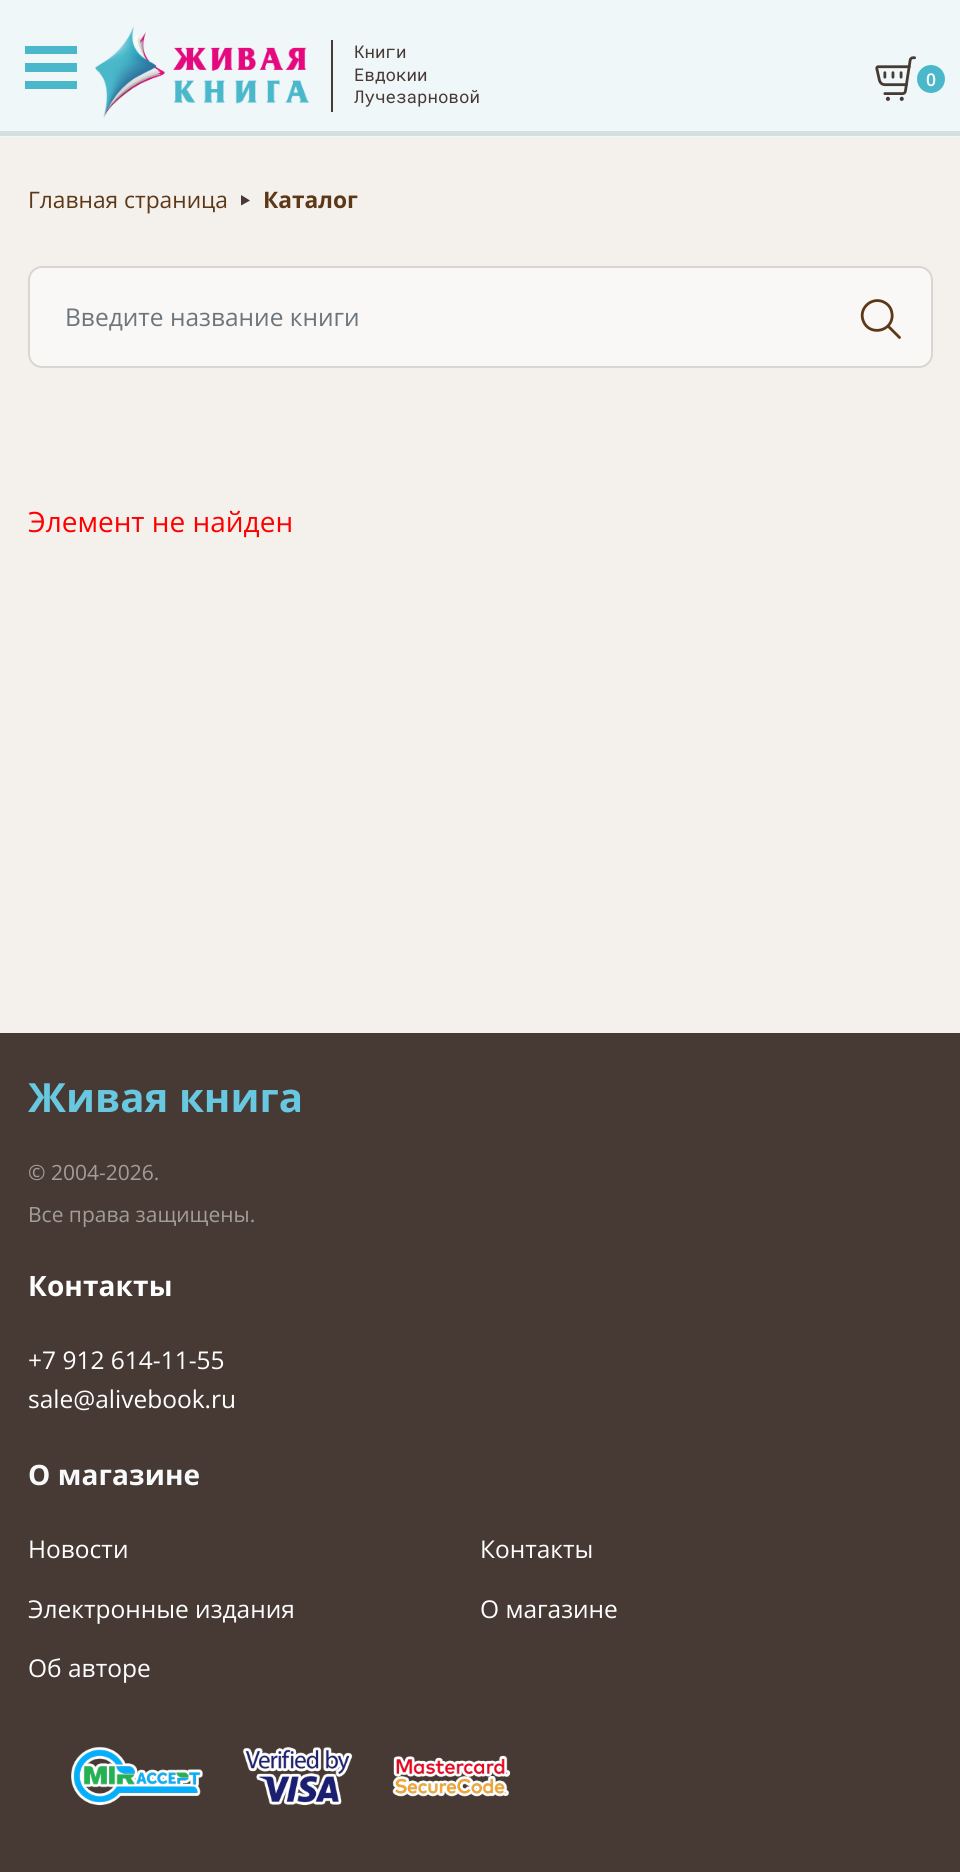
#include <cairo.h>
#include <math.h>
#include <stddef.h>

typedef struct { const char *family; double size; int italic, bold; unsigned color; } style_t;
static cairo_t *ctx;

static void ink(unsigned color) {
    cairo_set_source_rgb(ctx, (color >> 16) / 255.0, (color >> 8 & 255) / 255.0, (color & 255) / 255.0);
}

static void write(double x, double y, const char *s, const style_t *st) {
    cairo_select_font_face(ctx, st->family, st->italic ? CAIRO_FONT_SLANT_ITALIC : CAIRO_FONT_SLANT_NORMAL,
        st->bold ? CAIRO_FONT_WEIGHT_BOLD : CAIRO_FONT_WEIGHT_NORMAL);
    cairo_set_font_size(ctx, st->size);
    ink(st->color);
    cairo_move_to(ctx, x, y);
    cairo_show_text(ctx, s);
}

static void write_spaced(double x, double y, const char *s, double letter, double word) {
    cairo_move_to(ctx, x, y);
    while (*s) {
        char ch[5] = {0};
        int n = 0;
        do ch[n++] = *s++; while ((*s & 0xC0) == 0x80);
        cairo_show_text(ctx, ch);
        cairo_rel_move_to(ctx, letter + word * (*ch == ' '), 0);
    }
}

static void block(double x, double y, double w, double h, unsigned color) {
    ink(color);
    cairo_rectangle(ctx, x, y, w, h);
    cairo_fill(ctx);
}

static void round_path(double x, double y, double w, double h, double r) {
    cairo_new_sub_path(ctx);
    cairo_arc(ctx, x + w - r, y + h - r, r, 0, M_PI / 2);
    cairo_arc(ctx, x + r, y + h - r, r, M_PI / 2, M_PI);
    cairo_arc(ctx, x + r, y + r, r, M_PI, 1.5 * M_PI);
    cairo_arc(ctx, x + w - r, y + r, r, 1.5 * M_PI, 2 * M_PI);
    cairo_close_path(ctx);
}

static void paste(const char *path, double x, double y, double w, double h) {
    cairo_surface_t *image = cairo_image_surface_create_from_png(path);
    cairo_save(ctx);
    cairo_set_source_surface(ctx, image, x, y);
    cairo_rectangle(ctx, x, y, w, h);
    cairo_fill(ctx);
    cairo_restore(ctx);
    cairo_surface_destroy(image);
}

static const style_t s1 = {"Roboto Mono", 17.5, 0, 0, 0x473a34};
static const style_t s2 = {"Open Sans SemiBold", 17.5, 0, 0, 0xffffff};
static const style_t s3 = {"Open Sans", 22.75, 0, 0, 0x5c3816};
static const style_t s4 = {"Open Sans", 22.75, 0, 1, 0x5c3816};
static const style_t s5 = {"Open Sans", 24.5, 0, 0, 0x6c757d};
static const style_t s6 = {"Open Sans", 28, 0, 0, 0xff0000};
static const style_t s7 = {"Open Sans", 40.25, 0, 1, 0x68c8e0};
static const style_t s8 = {"Open Sans", 21, 0, 0, 0xa39d9a};
static const style_t s9 = {"Open Sans", 24.5, 0, 0, 0xffffff};

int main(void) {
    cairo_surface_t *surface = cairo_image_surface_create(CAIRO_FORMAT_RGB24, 960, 1872);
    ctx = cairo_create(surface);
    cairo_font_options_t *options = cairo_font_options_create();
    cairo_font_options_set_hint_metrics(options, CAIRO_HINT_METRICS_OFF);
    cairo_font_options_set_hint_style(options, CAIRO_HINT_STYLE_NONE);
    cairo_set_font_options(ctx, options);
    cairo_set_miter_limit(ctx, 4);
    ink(0xf4f1ed);
    cairo_paint(ctx);
    block(0, 0, 960, 137, 0xf0f7f9);
    block(0, 131, 960, 5, 0xd4dfe2);
    block(25, 46, 52, 8, 0x4ab8ca);
    block(25, 81, 52, 8, 0x4ab8ca);
    block(25, 63, 52, 9, 0x4ab8ca);
    paste("pic1.png", 95, 26, 215, 92);
    block(331, 40, 2, 72, 0x473a34);
    write(354, 58, "Книги", &s1);
    write(354, 81, "Евдокии", &s1);
    write(354, 103, "Лучезарновой", &s1);
    paste("pic2.png", 875, 56, 41, 45);
    ink(0x4ab8ca);
    cairo_arc(ctx, 931, 79, 14, 0, 2 * M_PI);
    cairo_fill(ctx);
    write(926, 86, "0", &s2);
    write(28, 208, "Главная страница", &s3);
    ink(0x473a34);
    cairo_new_path(ctx);
    cairo_move_to(ctx, 250, 200.5);
    cairo_line_to(ctx, 241, 205.5);
    cairo_line_to(ctx, 241, 195);
    cairo_close_path(ctx);
    cairo_fill(ctx);
    write(263, 208, "Каталог", &s4);
    ink(0xfaf8f6);
    round_path(29, 267, 903, 100, 13);
    cairo_fill_preserve(ctx);
    ink(0xd9d5d1);
    cairo_stroke(ctx);
    write(65, 326, "Введите название книги", &s5);
    cairo_new_path(ctx);
    cairo_move_to(ctx, 863.5, 321.5);
    cairo_curve_to(ctx, 869, 335, 889.5, 332.5, 892, 318);
    cairo_curve_to(ctx, 892.5, 315.5, 892, 312.5, 891, 309.5);
    cairo_curve_to(ctx, 890, 307, 888, 304.5, 885.5, 303);
    cairo_curve_to(ctx, 873, 295, 857.5, 308, 863.5, 321.5);
    cairo_close_path(ctx);
    cairo_move_to(ctx, 888, 326);
    cairo_line_to(ctx, 899.5, 337.5);
    ink(0x5c3816);
    cairo_set_line_width(ctx, 2.8);
    cairo_set_line_cap(ctx, CAIRO_LINE_CAP_ROUND);
    cairo_set_line_join(ctx, CAIRO_LINE_JOIN_ROUND);
    cairo_stroke(ctx);
    write(28, 532, "Элемент не найден", &s6);
    block(0, 1033, 960, 839, 0x473a34);
    write(28, 1112, "Живая книга", &s7);
    write(28, 1180, "© 2004-2026.", &s8);
    write(28, 1222, "Все права защищены.", &s8);
    cairo_select_font_face(ctx, "Open Sans", CAIRO_FONT_SLANT_NORMAL, CAIRO_FONT_WEIGHT_BOLD);
    cairo_set_font_size(ctx, 28);
    ink(0xffffff);
    write_spaced(28, 1296, "Контакты", 0.1, 0);
    write(28, 1369, "+7 912 614-11-55", &s9);
    write(28, 1408, "sale@alivebook.ru", &s9);
    cairo_select_font_face(ctx, "Open Sans", CAIRO_FONT_SLANT_NORMAL, CAIRO_FONT_WEIGHT_BOLD);
    cairo_set_font_size(ctx, 28);
    ink(0xf8f9fa);
    write_spaced(28, 1485, "О магазине", 0.1, 0);
    write(28, 1558, "Новости", &s9);
    write(480, 1558, "Контакты", &s9);
    write(28, 1618, "Электронные издания", &s9);
    write(480, 1618, "О магазине", &s9);
    write(28, 1677, "Об авторе", &s9);
    paste("pic3.png", 71, 1747, 440, 59);
    cairo_surface_write_to_png(surface, "screenshot.png");
    cairo_font_options_destroy(options);
    cairo_destroy(ctx);
    cairo_surface_destroy(surface);
    return 0;
}
